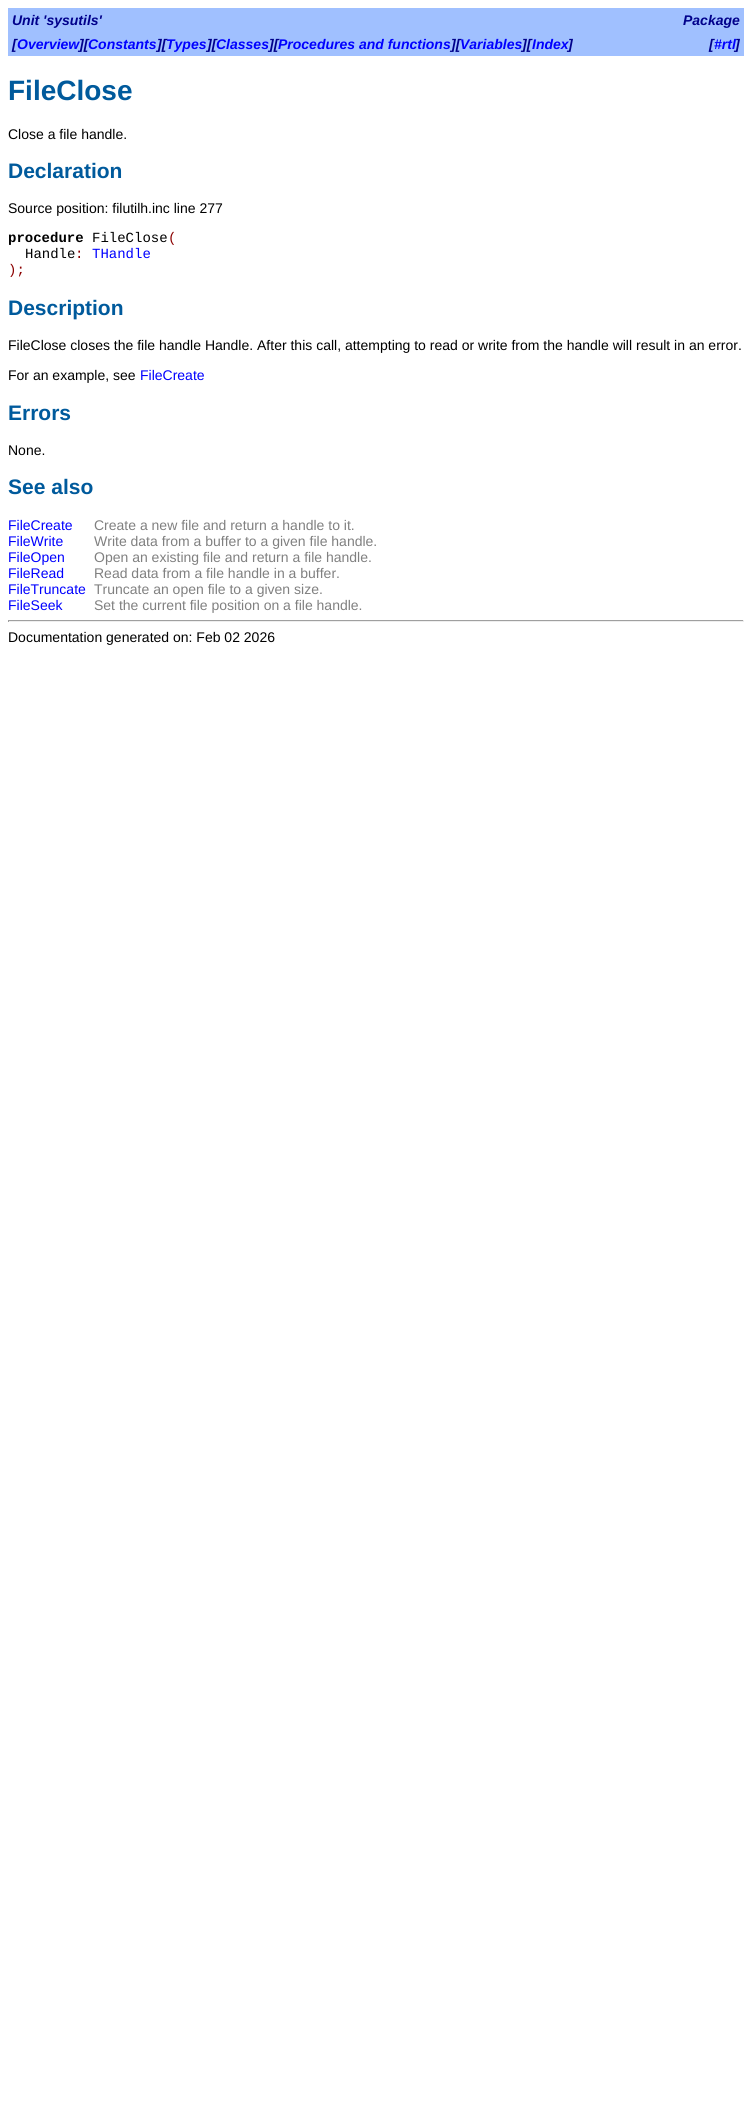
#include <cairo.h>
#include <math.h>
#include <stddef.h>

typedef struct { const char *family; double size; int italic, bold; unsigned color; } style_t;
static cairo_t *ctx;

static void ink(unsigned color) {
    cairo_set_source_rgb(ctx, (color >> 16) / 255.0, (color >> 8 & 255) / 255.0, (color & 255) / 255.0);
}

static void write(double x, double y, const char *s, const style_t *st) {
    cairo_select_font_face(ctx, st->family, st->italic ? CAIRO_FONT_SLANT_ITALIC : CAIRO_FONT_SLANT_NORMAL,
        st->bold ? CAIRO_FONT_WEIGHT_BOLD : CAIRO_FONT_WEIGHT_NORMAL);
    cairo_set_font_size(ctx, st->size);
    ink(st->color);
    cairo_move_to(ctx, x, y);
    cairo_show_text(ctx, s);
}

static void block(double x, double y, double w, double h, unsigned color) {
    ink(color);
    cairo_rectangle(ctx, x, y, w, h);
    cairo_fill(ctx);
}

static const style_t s1 = {"Liberation Sans", 14, 1, 1, 0x00008b};
static const style_t s2 = {"Liberation Sans", 14, 1, 1, 0x0000ff};
static const style_t s3 = {"Liberation Sans", 28, 0, 1, 0x005a9c};
static const style_t s4 = {"Liberation Sans", 14, 0, 0, 0x000000};
static const style_t s5 = {"Liberation Sans", 21, 0, 1, 0x005a9c};
static const style_t s6 = {"Liberation Mono", 14, 0, 1, 0x000000};
static const style_t s7 = {"Liberation Mono", 14, 0, 0, 0x000000};
static const style_t s8 = {"Liberation Mono", 14, 0, 0, 0x8b0000};
static const style_t s9 = {"Liberation Mono", 14, 0, 0, 0x0000ff};
static const style_t s10 = {"Liberation Sans", 14, 0, 0, 0x0000ff};
static const style_t s11 = {"Liberation Sans", 14, 0, 0, 0x808080};

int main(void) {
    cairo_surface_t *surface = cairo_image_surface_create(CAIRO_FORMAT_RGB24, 752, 2102);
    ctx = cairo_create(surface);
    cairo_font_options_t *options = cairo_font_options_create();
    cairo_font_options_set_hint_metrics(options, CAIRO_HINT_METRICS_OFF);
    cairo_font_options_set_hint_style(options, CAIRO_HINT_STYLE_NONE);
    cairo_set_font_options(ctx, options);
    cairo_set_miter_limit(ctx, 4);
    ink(0xffffff);
    cairo_paint(ctx);
    block(8, 8, 736, 48, 0xa0c0ff);
    write(12, 25, "Unit 'sysutils'", &s1);
    write(683, 25, "Package", &s1);
    write(12, 49, "[", &s1);
    write(17, 49, "Overview", &s2);
    write(79, 49, "][", &s1);
    write(88, 49, "Constants", &s2);
    write(157, 49, "][", &s1);
    write(166, 49, "Types", &s2);
    write(207, 49, "][", &s1);
    write(216, 49, "Classes", &s2);
    write(269, 49, "][", &s1);
    write(278, 49, "Procedures and functions", &s2);
    write(451, 49, "][", &s1);
    write(460, 49, "Variables", &s2);
    write(522, 49, "][", &s1);
    write(532, 49, "Index", &s2);
    write(568, 49, "]", &s1);
    write(709, 49, "[", &s1);
    write(714, 49, "#rtl", &s2);
    write(735, 49, "]", &s1);
    write(8, 100, "FileClose", &s3);
    write(8, 139, "Close a file handle.", &s4);
    write(8, 178, "Declaration", &s5);
    write(8, 213, "Source position: filutilh.inc line 277", &s4);
    write(8, 242, "procedure", &s6);
    write(92, 242, "FileClose", &s7);
    write(168, 242, "(", &s8);
    write(25, 258, "Handle", &s7);
    write(75, 258, ":", &s8);
    write(92, 258, "THandle", &s9);
    write(8, 274, ");", &s8);
    write(8, 315, "Description", &s5);
    write(8, 350, "FileClose closes the file handle Handle. After this call, attempting to read or write from the handle will result in an error.", &s4);
    write(8, 380, "For an example, see", &s4);
    write(140, 380, "FileCreate", &s10);
    write(8, 420, "Errors", &s5);
    write(8, 455, "None.", &s4);
    write(8, 494, "See also", &s5);
    write(8, 530, "FileCreate", &s10);
    write(94, 530, "Create a new file and return a handle to it.", &s11);
    write(8, 546, "FileWrite", &s10);
    write(94, 546, "Write data from a buffer to a given file handle.", &s11);
    write(8, 562, "FileOpen", &s10);
    write(94, 562, "Open an existing file and return a file handle.", &s11);
    write(8, 578, "FileRead", &s10);
    write(94, 578, "Read data from a file handle in a buffer.", &s11);
    write(8, 594, "FileTruncate", &s10);
    write(94, 594, "Truncate an open file to a given size.", &s11);
    write(8, 610, "FileSeek", &s10);
    write(94, 610, "Set the current file position on a file handle.", &s11);
    block(8, 620, 736, 1, 0x9f9f9f);
    block(743, 620, 1, 2, 0xeeeeee);
    block(8, 621, 736, 1, 0xeeeeee);
    block(8, 620, 1, 2, 0x9f9f9f);
    write(8, 642, "Documentation generated on: Feb 02 2026", &s4);
    cairo_surface_write_to_png(surface, "screenshot.png");
    cairo_font_options_destroy(options);
    cairo_destroy(ctx);
    cairo_surface_destroy(surface);
    return 0;
}
